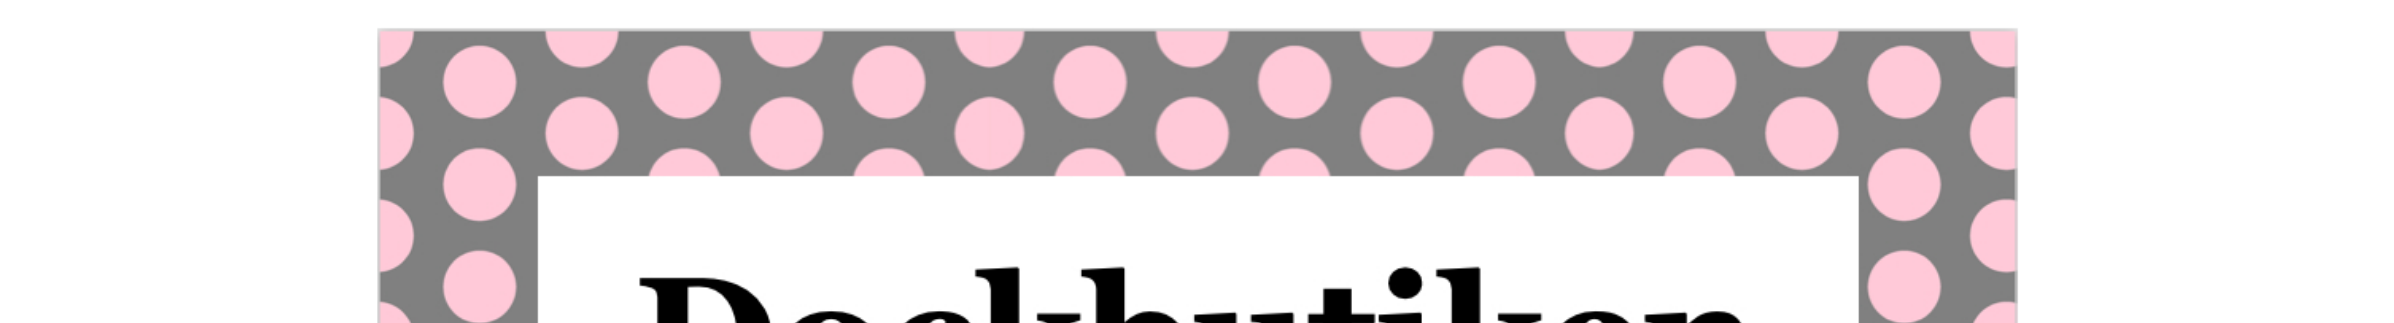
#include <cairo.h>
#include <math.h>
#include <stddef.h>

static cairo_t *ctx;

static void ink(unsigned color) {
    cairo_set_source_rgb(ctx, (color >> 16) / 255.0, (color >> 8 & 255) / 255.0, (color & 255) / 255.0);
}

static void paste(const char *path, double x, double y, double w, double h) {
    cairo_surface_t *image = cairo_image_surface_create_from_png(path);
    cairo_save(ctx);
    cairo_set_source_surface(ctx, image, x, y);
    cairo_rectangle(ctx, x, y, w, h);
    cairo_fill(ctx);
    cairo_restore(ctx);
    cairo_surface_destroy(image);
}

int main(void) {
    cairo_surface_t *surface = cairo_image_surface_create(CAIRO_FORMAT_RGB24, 2394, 323);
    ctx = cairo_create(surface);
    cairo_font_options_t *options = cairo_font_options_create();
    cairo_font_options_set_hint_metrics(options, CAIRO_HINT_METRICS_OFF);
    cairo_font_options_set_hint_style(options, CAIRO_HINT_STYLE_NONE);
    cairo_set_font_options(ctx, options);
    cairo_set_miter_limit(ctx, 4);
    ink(0xffffff);
    cairo_paint(ctx);
    paste("pic1.png", 377, 27, 1642, 296);
    cairo_surface_write_to_png(surface, "screenshot.png");
    cairo_font_options_destroy(options);
    cairo_destroy(ctx);
    cairo_surface_destroy(surface);
    return 0;
}
